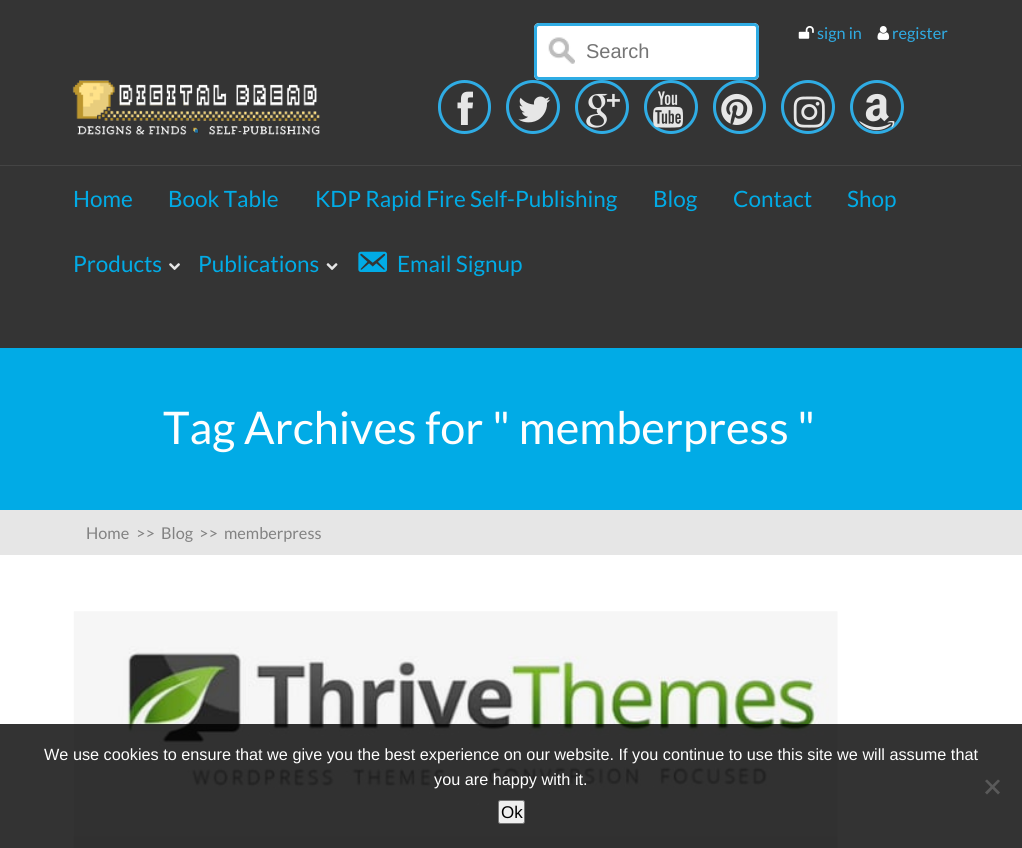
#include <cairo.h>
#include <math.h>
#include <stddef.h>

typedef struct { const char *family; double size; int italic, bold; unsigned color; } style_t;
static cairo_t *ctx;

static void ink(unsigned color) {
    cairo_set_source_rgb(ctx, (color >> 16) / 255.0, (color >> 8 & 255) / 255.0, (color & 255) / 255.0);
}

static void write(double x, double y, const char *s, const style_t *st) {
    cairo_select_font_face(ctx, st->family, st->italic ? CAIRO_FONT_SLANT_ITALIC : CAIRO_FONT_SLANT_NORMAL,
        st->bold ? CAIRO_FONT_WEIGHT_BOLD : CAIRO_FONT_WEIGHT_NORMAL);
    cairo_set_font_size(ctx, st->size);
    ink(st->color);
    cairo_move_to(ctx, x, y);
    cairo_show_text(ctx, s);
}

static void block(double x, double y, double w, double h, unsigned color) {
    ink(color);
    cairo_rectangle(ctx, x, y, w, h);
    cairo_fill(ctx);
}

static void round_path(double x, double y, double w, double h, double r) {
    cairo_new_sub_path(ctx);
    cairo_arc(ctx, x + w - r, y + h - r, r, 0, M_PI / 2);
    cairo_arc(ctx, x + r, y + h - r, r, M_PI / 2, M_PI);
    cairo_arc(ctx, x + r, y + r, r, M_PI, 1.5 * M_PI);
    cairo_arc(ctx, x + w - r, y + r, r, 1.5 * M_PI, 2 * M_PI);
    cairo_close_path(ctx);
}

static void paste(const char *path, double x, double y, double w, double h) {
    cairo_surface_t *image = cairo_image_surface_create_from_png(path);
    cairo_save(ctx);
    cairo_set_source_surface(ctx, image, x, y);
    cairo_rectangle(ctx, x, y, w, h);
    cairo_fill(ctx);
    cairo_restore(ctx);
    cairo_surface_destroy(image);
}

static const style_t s1 = {"Lato", 16.25, 0, 0, 0x2face4};
static const style_t s2 = {"Liberation Sans", 20, 0, 0, 0x757575};
static const style_t s3 = {"Lato", 22.5, 0, 0, 0x01abe6};
static const style_t s4 = {"Lato", 45, 0, 0, 0xfefefe};
static const style_t s5 = {"Lato", 16.25, 0, 0, 0x828282};
static const style_t s6 = {"Liberation Sans", 16.25, 0, 0, 0xfefefe};
static const style_t s7 = {"Liberation Sans", 17, 0, 0, 0x000000};

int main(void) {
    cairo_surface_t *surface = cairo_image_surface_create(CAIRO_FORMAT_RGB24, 1022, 848);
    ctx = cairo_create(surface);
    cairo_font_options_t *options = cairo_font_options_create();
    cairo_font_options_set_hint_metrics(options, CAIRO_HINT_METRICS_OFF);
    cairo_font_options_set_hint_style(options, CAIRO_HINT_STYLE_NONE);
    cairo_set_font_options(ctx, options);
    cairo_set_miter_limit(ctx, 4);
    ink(0xffffff);
    cairo_paint(ctx);
    block(0, 0, 1022, 348, 0x343434);
    paste("pic1.png", 798, 26, 16, 13);
    write(817, 39, "sign in", &s1);
    paste("pic2.png", 877, 26, 13, 14);
    write(892, 39, "register", &s1);
    ink(0xffffff);
    round_path(534, 23, 225, 57, 5);
    cairo_fill(ctx);
    paste("pic3.png", 548, 37, 27, 27);
    round_path(535.5, 24.5, 222, 54, 3.5);
    ink(0x2face4);
    cairo_set_line_width(ctx, 3);
    cairo_stroke(ctx);
    write(586, 58, "Search", &s2);
    paste("pic4.png", 72, 80, 248, 55);
    round_path(439.5, 81.5, 50, 51, 25);
    ink(0x2face4);
    cairo_stroke(ctx);
    paste("pic5.png", 457, 91, 16, 34);
    cairo_arc(ctx, 533, 107, 25.5, 0, 2 * M_PI);
    cairo_stroke(ctx);
    paste("pic6.png", 518, 96, 33, 27);
    cairo_arc(ctx, 602, 107, 25.5, 0, 2 * M_PI);
    cairo_stroke(ctx);
    paste("pic7.png", 586, 93, 34, 35);
    cairo_arc(ctx, 671, 107, 25.5, 0, 2 * M_PI);
    cairo_stroke(ctx);
    paste("pic8.png", 653, 91, 30, 37);
    round_path(714.5, 81.5, 50, 51, 25);
    cairo_stroke(ctx);
    paste("pic9.png", 721, 93, 32, 32);
    cairo_arc(ctx, 808, 107, 25.5, 0, 2 * M_PI);
    cairo_stroke(ctx);
    paste("pic10.png", 793, 96, 32, 32);
    cairo_arc(ctx, 877, 107, 25.5, 0, 2 * M_PI);
    cairo_stroke(ctx);
    paste("pic11.png", 859, 93, 36, 38);
    block(0, 165, 1021, 1, 0x444444);
    write(73, 207, "Home", &s3);
    write(168, 207, "Book Table", &s3);
    write(315, 207, "KDP Rapid Fire Self-Publishing", &s3);
    write(653, 207, "Blog", &s3);
    write(733, 207, "Contact", &s3);
    write(847, 207, "Shop", &s3);
    write(73, 272, "Products", &s3);
    paste("pic12.png", 169, 263, 11, 7);
    write(198, 272, "Publications", &s3);
    paste("pic13.png", 326, 263, 12, 7);
    paste("pic14.png", 358, 251, 30, 21);
    write(397, 272, "Email Signup", &s3);
    block(0, 348, 1022, 162, 0x01abe6);
    write(163, 444, "Tag Archives for \" memberpress \"", &s4);
    block(0, 510, 1022, 45, 0xe6e6e6);
    write(86, 539, "Home", &s5);
    write(136, 539, ">>", &s5);
    write(161, 539, "Blog", &s5);
    write(199, 539, ">>", &s5);
    write(224, 539, "memberpress", &s5);
    paste("pic15.png", 73, 611, 765, 237);
    cairo_set_source_rgba(ctx, 0, 0, 0, 0.8);
    cairo_rectangle(ctx, 0, 724, 1022, 124);
    cairo_fill(ctx);
    write(44, 760, "We use cookies to ensure that we give you the best experience on our website. If you continue to use this site we will assume that", &s6);
    write(434, 785, "you are happy with it.", &s6);
    ink(0x5a5a5a);
    cairo_new_path(ctx);
    cairo_move_to(ctx, 998, 779.5);
    cairo_line_to(ctx, 1000, 781);
    cairo_line_to(ctx, 987, 794.5);
    cairo_line_to(ctx, 985, 792.5);
    cairo_close_path(ctx);
    cairo_fill(ctx);
    cairo_new_path(ctx);
    cairo_move_to(ctx, 985, 781);
    cairo_line_to(ctx, 987, 779.5);
    cairo_line_to(ctx, 1000, 792.5);
    cairo_line_to(ctx, 998, 794.5);
    cairo_close_path(ctx);
    cairo_fill(ctx);
    ink(0xefefef);
    round_path(498.5, 800.5, 26, 23, 2);
    cairo_fill_preserve(ctx);
    ink(0x767676);
    cairo_set_line_width(ctx, 1);
    cairo_stroke(ctx);
    write(501, 818, "Ok", &s7);
    cairo_surface_write_to_png(surface, "screenshot.png");
    cairo_font_options_destroy(options);
    cairo_destroy(ctx);
    cairo_surface_destroy(surface);
    return 0;
}
